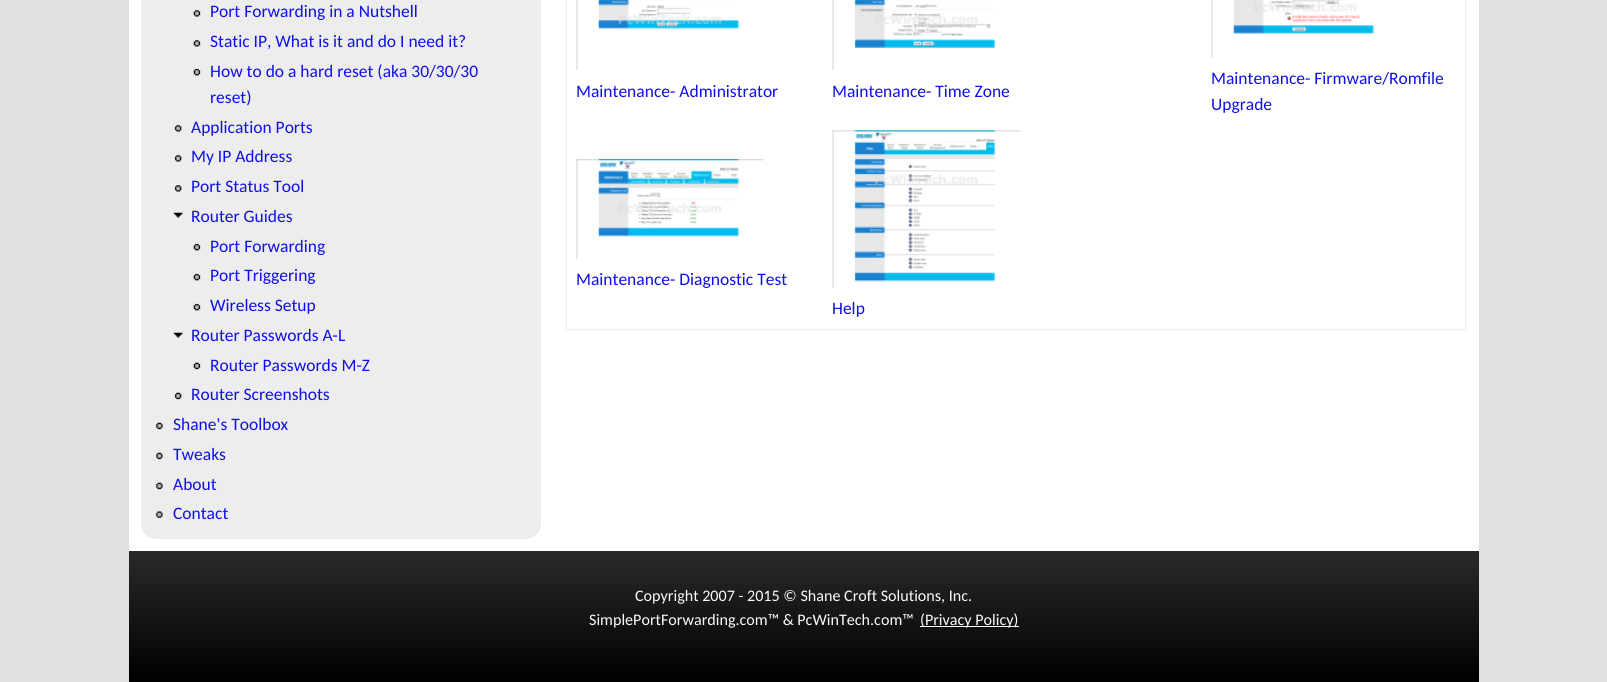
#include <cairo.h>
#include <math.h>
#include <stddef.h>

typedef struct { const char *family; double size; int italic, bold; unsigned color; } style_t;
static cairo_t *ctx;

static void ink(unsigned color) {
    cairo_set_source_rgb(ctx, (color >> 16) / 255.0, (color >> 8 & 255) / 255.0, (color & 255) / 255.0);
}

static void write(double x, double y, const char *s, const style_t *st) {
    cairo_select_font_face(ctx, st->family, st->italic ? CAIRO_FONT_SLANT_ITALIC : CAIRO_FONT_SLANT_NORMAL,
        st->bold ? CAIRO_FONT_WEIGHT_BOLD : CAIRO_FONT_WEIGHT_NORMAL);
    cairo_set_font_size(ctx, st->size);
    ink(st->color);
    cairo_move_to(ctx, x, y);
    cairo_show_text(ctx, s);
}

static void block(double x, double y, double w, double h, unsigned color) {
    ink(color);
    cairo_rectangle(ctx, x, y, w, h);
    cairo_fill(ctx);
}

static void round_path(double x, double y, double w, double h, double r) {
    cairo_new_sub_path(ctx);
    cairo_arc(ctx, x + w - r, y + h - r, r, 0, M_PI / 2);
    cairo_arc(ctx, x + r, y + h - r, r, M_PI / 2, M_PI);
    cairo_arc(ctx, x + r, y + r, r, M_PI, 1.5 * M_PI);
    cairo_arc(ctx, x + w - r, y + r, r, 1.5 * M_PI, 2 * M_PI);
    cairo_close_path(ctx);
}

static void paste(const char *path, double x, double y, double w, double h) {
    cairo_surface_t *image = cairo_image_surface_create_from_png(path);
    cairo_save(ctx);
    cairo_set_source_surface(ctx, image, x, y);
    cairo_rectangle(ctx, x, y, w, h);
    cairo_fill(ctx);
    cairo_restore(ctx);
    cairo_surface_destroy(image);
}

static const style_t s1 = {"Carlito", 17.5, 0, 0, 0x0f0fea};
static const style_t s2 = {"Carlito", 16.1, 0, 0, 0xfefafb};

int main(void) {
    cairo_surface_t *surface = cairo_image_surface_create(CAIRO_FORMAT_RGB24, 1607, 682);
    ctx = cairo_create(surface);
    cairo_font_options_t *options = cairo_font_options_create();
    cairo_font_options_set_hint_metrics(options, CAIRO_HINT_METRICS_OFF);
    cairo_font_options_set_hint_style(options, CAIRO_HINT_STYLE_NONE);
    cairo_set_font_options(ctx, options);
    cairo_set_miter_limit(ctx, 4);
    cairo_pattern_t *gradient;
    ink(0xe1dfdf);
    cairo_paint(ctx);
    block(129, 0, 1350, 551, 0xffffff);
    ink(0xededed);
    round_path(141, -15, 400, 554, 15);
    cairo_fill(ctx);
    paste("pic1.png", 193, 10, 8, 7);
    write(210, 17, "Port Forwarding in a Nutshell", &s1);
    paste("pic1.png", 193, 40, 8, 7);
    write(210, 47, "Static IP, What is it and do I need it?", &s1);
    paste("pic2.png", 193, 68, 8, 8);
    write(210, 77, "How to do a hard reset (aka 30/30/30", &s1);
    write(210, 103, "reset)", &s1);
    paste("pic3.png", 174, 125, 8, 7);
    write(191, 133, "Application Ports", &s1);
    paste("pic3.png", 174, 155, 8, 7);
    write(191, 162, "My IP Address", &s1);
    paste("pic3.png", 174, 185, 8, 7);
    write(191, 192, "Port Status Tool", &s1);
    paste("pic4.png", 173, 212, 10, 6);
    write(191, 222, "Router Guides", &s1);
    paste("pic2.png", 193, 243, 8, 8);
    write(210, 252, "Port Forwarding", &s1);
    paste("pic2.png", 193, 273, 8, 8);
    write(210, 281, "Port Triggering", &s1);
    paste("pic2.png", 193, 303, 8, 8);
    write(210, 311, "Wireless Setup", &s1);
    paste("pic4.png", 173, 332, 10, 6);
    write(191, 341, "Router Passwords A-L", &s1);
    paste("pic5.png", 193, 362, 8, 8);
    write(210, 371, "Router Passwords M-Z", &s1);
    paste("pic6.png", 174, 392, 8, 8);
    write(191, 400, "Router Screenshots", &s1);
    paste("pic7.png", 156, 422, 7, 8);
    write(173, 430, "Shane's Toolbox", &s1);
    paste("pic7.png", 156, 452, 7, 8);
    write(173, 460, "Tweaks", &s1);
    paste("pic7.png", 156, 482, 7, 8);
    write(173, 490, "About", &s1);
    paste("pic8.png", 156, 511, 7, 7);
    write(173, 519, "Contact", &s1);
    block(1465, 0, 1, 330, 0xeeeeee);
    block(566, 329, 900, 1, 0xeeeeee);
    block(566, 0, 1, 330, 0xeeeeee);
    paste("pic9.png", 576, 0, 163, 71);
    write(576, 97, "Maintenance- Administrator", &s1);
    paste("pic10.png", 832, 0, 164, 71);
    write(832, 97, "Maintenance- Time Zone", &s1);
    paste("pic11.png", 1211, 0, 163, 58);
    write(1211, 84, "Maintenance- Firmware/Romfile", &s1);
    write(1211, 110, "Upgrade", &s1);
    paste("pic12.png", 576, 159, 188, 100);
    write(576, 285, "Maintenance- Diagnostic Test", &s1);
    paste("pic13.png", 832, 130, 188, 158);
    write(832, 314, "Help", &s1);
    gradient = cairo_pattern_create_linear(129, 551, 129, 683);
    cairo_pattern_add_color_stop_rgba(gradient, 0, 0.165, 0.165, 0.165, 1);
    cairo_pattern_add_color_stop_rgba(gradient, 1, 0, 0, 0, 1);
    cairo_set_source(ctx, gradient);
    cairo_pattern_destroy(gradient);
    cairo_rectangle(ctx, 129, 551, 1350, 131);
    cairo_fill(ctx);
    write(635, 601, "Copyright 2007 - 2015 © Shane Croft Solutions, Inc.", &s2);
    write(589, 625, "SimplePortForwarding.com™ & PcWinTech.com™", &s2);
    block(920, 626, 99, 1, 0xfefafb);
    write(920, 625, "(Privacy Policy)", &s2);
    cairo_surface_write_to_png(surface, "screenshot.png");
    cairo_font_options_destroy(options);
    cairo_destroy(ctx);
    cairo_surface_destroy(surface);
    return 0;
}
